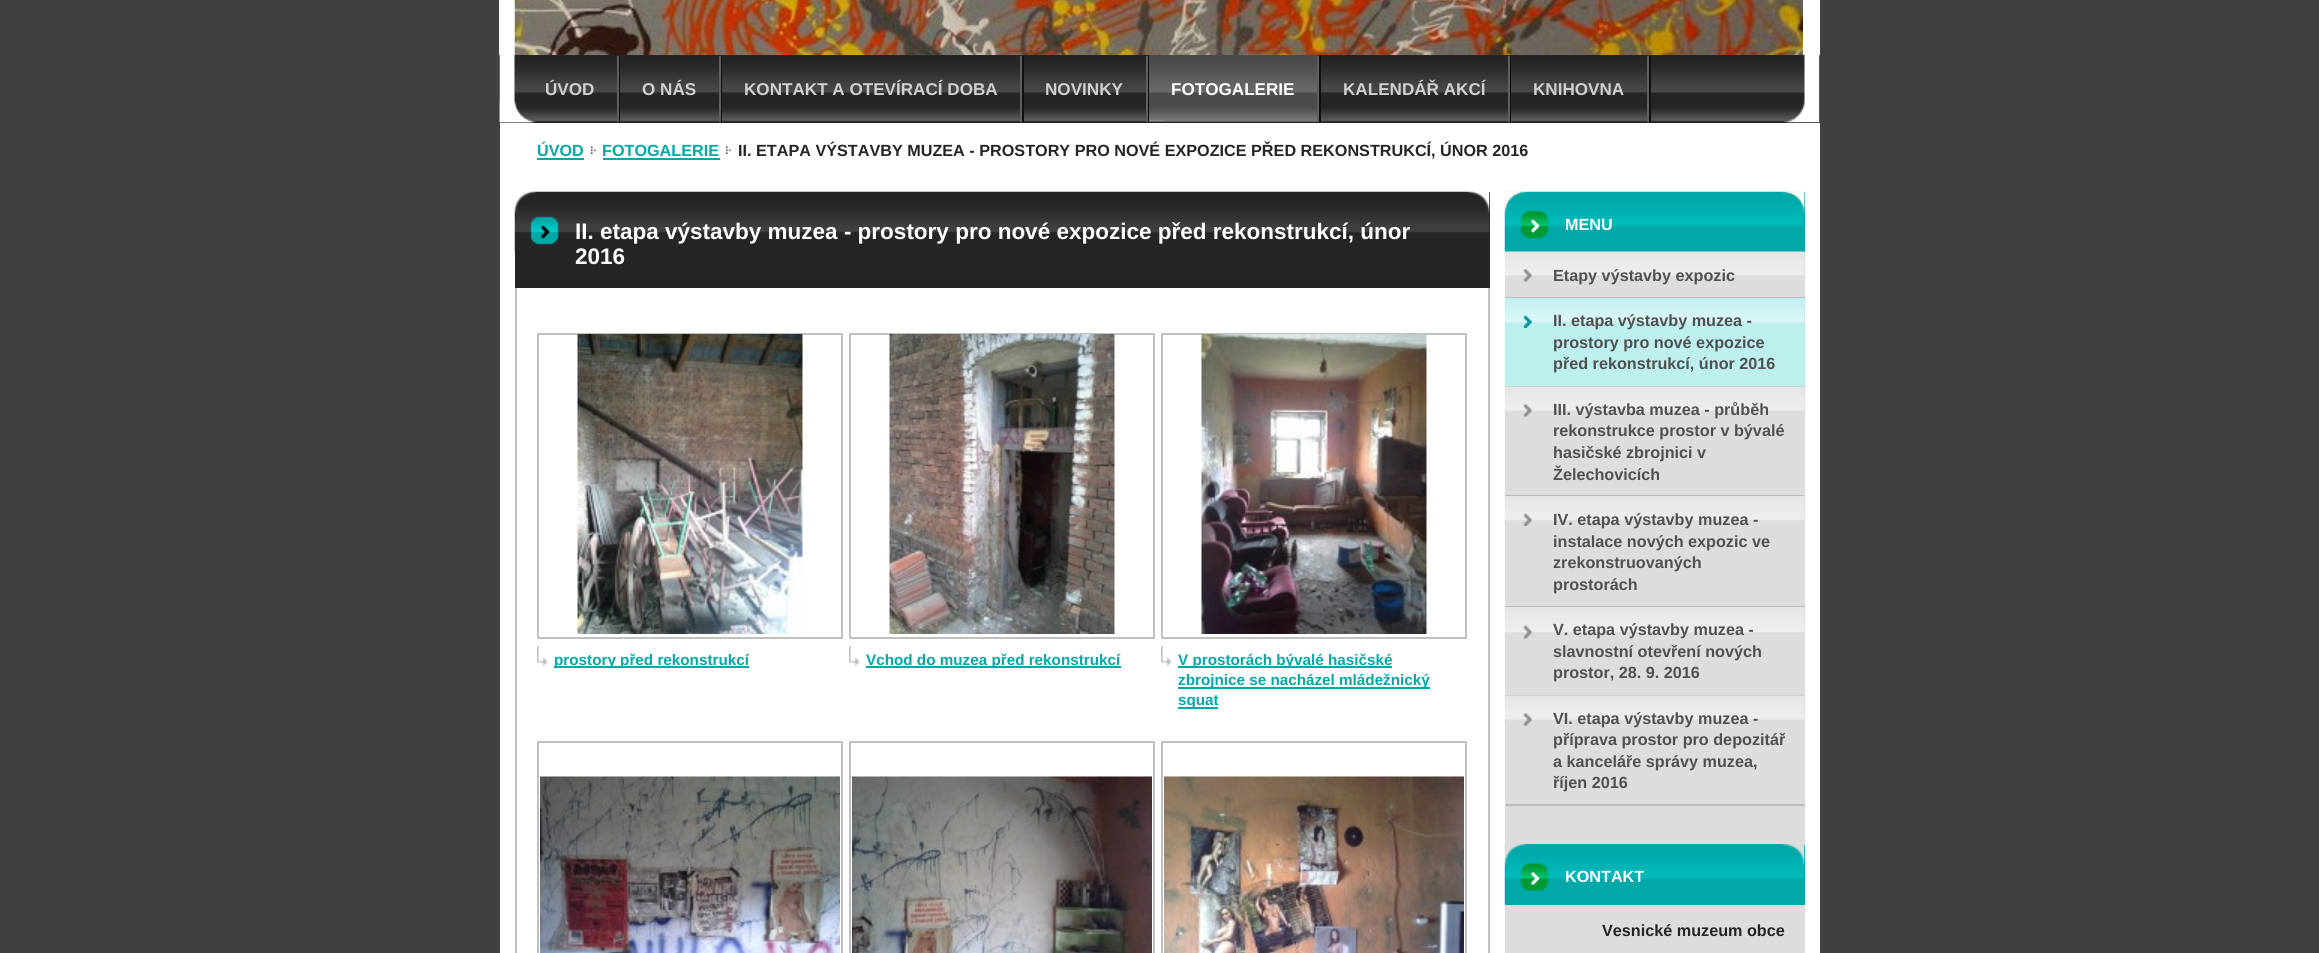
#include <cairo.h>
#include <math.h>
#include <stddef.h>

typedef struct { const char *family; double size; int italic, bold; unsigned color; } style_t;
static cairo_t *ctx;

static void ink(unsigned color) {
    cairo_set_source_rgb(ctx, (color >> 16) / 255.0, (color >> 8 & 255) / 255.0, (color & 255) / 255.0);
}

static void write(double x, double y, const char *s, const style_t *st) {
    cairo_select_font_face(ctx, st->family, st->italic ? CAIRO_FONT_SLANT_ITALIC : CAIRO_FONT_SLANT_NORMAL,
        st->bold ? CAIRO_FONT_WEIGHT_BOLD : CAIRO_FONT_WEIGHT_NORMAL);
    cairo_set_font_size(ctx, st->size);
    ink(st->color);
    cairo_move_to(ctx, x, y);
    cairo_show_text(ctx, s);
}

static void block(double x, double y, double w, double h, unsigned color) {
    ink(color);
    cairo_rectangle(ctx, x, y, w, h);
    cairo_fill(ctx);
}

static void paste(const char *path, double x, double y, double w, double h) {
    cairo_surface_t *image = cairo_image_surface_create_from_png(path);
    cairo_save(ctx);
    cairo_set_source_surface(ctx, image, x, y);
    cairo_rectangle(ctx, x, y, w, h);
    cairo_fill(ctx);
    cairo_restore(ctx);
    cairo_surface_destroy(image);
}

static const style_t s1 = {"Liberation Sans", 17.1, 0, 1, 0xd0d0d0};
static const style_t s2 = {"Liberation Sans", 17.1, 0, 1, 0xffffff};
static const style_t s3 = {"Liberation Sans", 16.2, 0, 1, 0x00a8a8};
static const style_t s4 = {"Liberation Sans", 16.2, 0, 1, 0x252525};
static const style_t s5 = {"Liberation Sans", 22.5, 0, 1, 0xffffff};
static const style_t s6 = {"Liberation Sans", 15.25, 0, 1, 0x00a8a8};
static const style_t s7 = {"Liberation Sans", 16.2, 0, 1, 0xffffff};
static const style_t s8 = {"Liberation Sans", 16.2, 0, 1, 0x505050};

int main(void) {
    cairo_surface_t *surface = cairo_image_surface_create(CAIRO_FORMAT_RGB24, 2319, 953);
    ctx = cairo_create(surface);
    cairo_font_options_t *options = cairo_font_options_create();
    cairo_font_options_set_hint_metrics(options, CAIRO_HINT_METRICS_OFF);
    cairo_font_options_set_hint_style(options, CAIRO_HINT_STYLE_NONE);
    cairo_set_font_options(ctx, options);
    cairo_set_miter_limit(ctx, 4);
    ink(0x404040);
    cairo_paint(ctx);
    block(499, 0, 1321, 55, 0xffffff);
    paste("pic1.png", 514, 0, 1289, 55);
    block(500, 56, 1320, 67, 0x222222);
    paste("pic2.png", 499, 55, 1321, 68);
    block(619, 56, 1, 66, 0x101010);
    block(617, 56, 2, 66, 0x5f5f5f);
    write(545, 95, "ÚVOD", &s1);
    block(721, 56, 1, 66, 0x101010);
    block(719, 56, 2, 66, 0x5f5f5f);
    write(642, 95, "O NÁS", &s1);
    block(1022, 56, 2, 66, 0x101010);
    block(1020, 56, 2, 66, 0x5f5f5f);
    write(744, 95, "KONTAKT A OTEVÍRACÍ DOBA", &s1);
    block(1148, 56, 1, 66, 0x101010);
    block(1146, 56, 2, 66, 0x5f5f5f);
    write(1045, 95, "NOVINKY", &s1);
    block(1319, 56, 2, 66, 0x101010);
    block(1149, 120, 168, 2, 0x5f5f5f);
    paste("pic3.png", 1149, 55, 170, 66);
    block(1317, 56, 2, 66, 0x5f5f5f);
    write(1171, 95, "FOTOGALERIE", &s2);
    block(1510, 56, 1, 66, 0x101010);
    block(1508, 56, 2, 66, 0x5f5f5f);
    write(1343, 95, "KALENDÁŘ AKCÍ", &s1);
    block(1649, 56, 2, 66, 0x101010);
    block(1647, 56, 2, 66, 0x5f5f5f);
    write(1533, 95, "KNIHOVNA", &s1);
    paste("pic4.png", 499, 101, 35, 22);
    block(500, 123, 1320, 830, 0xffffff);
    write(537, 156, "ÚVOD", &s3);
    block(537, 158, 47, 2, 0x00a8a8);
    paste("pic5.png", 591, 146, 5, 8);
    write(602, 156, "FOTOGALERIE", &s3);
    block(603, 158, 117, 2, 0x00a8a8);
    paste("pic5.png", 726, 146, 5, 8);
    write(738, 156, "II. ETAPA VÝSTAVBY MUZEA - PROSTORY PRO NOVÉ EXPOZICE PŘED REKONSTRUKCÍ, ÚNOR 2016", &s4);
    block(1489, 192, 1, 23, 0x252525);
    paste("pic6.png", 514, 191, 976, 23);
    block(1488, 288, 2, 665, 0xc0c0c0);
    block(515, 288, 2, 665, 0xc0c0c0);
    block(515, 215, 975, 73, 0x252525);
    paste("pic7.png", 514, 214, 976, 38);
    write(575, 239, "II. etapa výstavby muzea - prostory pro nové expozice před rekonstrukcí, únor", &s5);
    write(575, 264, "2016", &s5);
    cairo_rectangle(ctx, 538, 334, 304, 304);
    ink(0xc0c0c0);
    cairo_stroke(ctx);
    paste("pic8.png", 577, 334, 226, 300);
    paste("pic9.png", 537, 646, 11, 20);
    block(554, 666, 195, 2, 0x00a8a8);
    write(554, 665, "prostory před rekonstrukcí", &s6);
    cairo_rectangle(ctx, 850, 334, 304, 304);
    ink(0xc0c0c0);
    cairo_stroke(ctx);
    paste("pic10.png", 889, 334, 226, 300);
    paste("pic9.png", 849, 646, 11, 20);
    block(866, 666, 255, 2, 0x00a8a8);
    write(866, 665, "Vchod do muzea před rekonstrukcí", &s6);
    cairo_rectangle(ctx, 1162, 334, 304, 304);
    ink(0xc0c0c0);
    cairo_stroke(ctx);
    paste("pic11.png", 1201, 334, 226, 300);
    paste("pic12.png", 1161, 646, 11, 20);
    block(1178, 666, 214, 2, 0x00a8a8);
    write(1178, 665, "V prostorách bývalé hasičské", &s6);
    block(1178, 687, 252, 2, 0x00a8a8);
    write(1178, 685, "zbrojnice se nacházel mládežnický", &s6);
    block(1178, 707, 40, 2, 0x00a8a8);
    write(1178, 705, "squat", &s6);
    cairo_rectangle(ctx, 538, 742, 304, 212);
    ink(0xc0c0c0);
    cairo_stroke(ctx);
    paste("pic13.png", 540, 776, 300, 177);
    cairo_rectangle(ctx, 850, 742, 304, 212);
    cairo_stroke(ctx);
    paste("pic14.png", 852, 776, 300, 177);
    cairo_rectangle(ctx, 1162, 742, 304, 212);
    cairo_stroke(ctx);
    paste("pic15.png", 1164, 776, 300, 177);
    block(1505, 252, 300, 593, 0xdddddd);
    block(1505, 192, 300, 60, 0x00a8a8);
    paste("pic17.png", 1504, 191, 301, 61);
    paste("pic16.png", 1504, 191, 301, 18);
    write(1565, 230, "MENU", &s7);
    paste("pic18.png", 1504, 251, 301, 31);
    block(1505, 297, 300, 2, 0xbbbbbb);
    write(1553, 281, "Etapy výstavby expozic", &s8);
    block(1505, 299, 300, 87, 0xbdefef);
    paste("pic19.png", 1504, 298, 301, 30);
    block(1505, 386, 300, 1, 0xbbbbbb);
    write(1553, 326, "II. etapa výstavby muzea -", &s8);
    write(1553, 348, "prostory pro nové expozice", &s8);
    write(1553, 369, "před rekonstrukcí, únor 2016", &s8);
    paste("pic20.png", 1504, 386, 301, 31);
    block(1505, 495, 300, 2, 0xbbbbbb);
    write(1553, 415, "III. výstavba muzea - průběh", &s8);
    write(1553, 436, "rekonstrukce prostor v bývalé", &s8);
    write(1553, 458, "hasičské zbrojnici v", &s8);
    write(1553, 480, "Želechovicích", &s8);
    paste("pic21.png", 1504, 496, 301, 30);
    block(1505, 606, 300, 2, 0xbbbbbb);
    write(1553, 525, "IV. etapa výstavby muzea -", &s8);
    write(1553, 547, "instalace nových expozic ve", &s8);
    write(1553, 568, "zrekonstruovaných", &s8);
    write(1553, 590, "prostorách", &s8);
    paste("pic22.png", 1504, 607, 301, 32);
    block(1505, 695, 300, 1, 0xbbbbbb);
    write(1553, 635, "V. etapa výstavby muzea -", &s8);
    write(1553, 657, "slavnostní otevření nových", &s8);
    write(1553, 678, "prostor, 28. 9. 2016", &s8);
    paste("pic20.png", 1504, 695, 301, 31);
    block(1505, 804, 300, 2, 0xbbbbbb);
    write(1553, 724, "VI. etapa výstavby muzea -", &s8);
    write(1553, 745, "příprava prostor pro depozitář", &s8);
    write(1553, 767, "a kanceláře správy muzea,", &s8);
    write(1553, 788, "říjen 2016", &s8);
    block(1505, 905, 300, 48, 0xdddddd);
    block(1505, 845, 300, 60, 0x00a8a8);
    paste("pic23.png", 1504, 844, 301, 60);
    write(1565, 882, "KONTAKT", &s7);
    write(1602, 936, "Vesnické muzeum obce", &s4);
    cairo_surface_write_to_png(surface, "screenshot.png");
    cairo_font_options_destroy(options);
    cairo_destroy(ctx);
    cairo_surface_destroy(surface);
    return 0;
}
